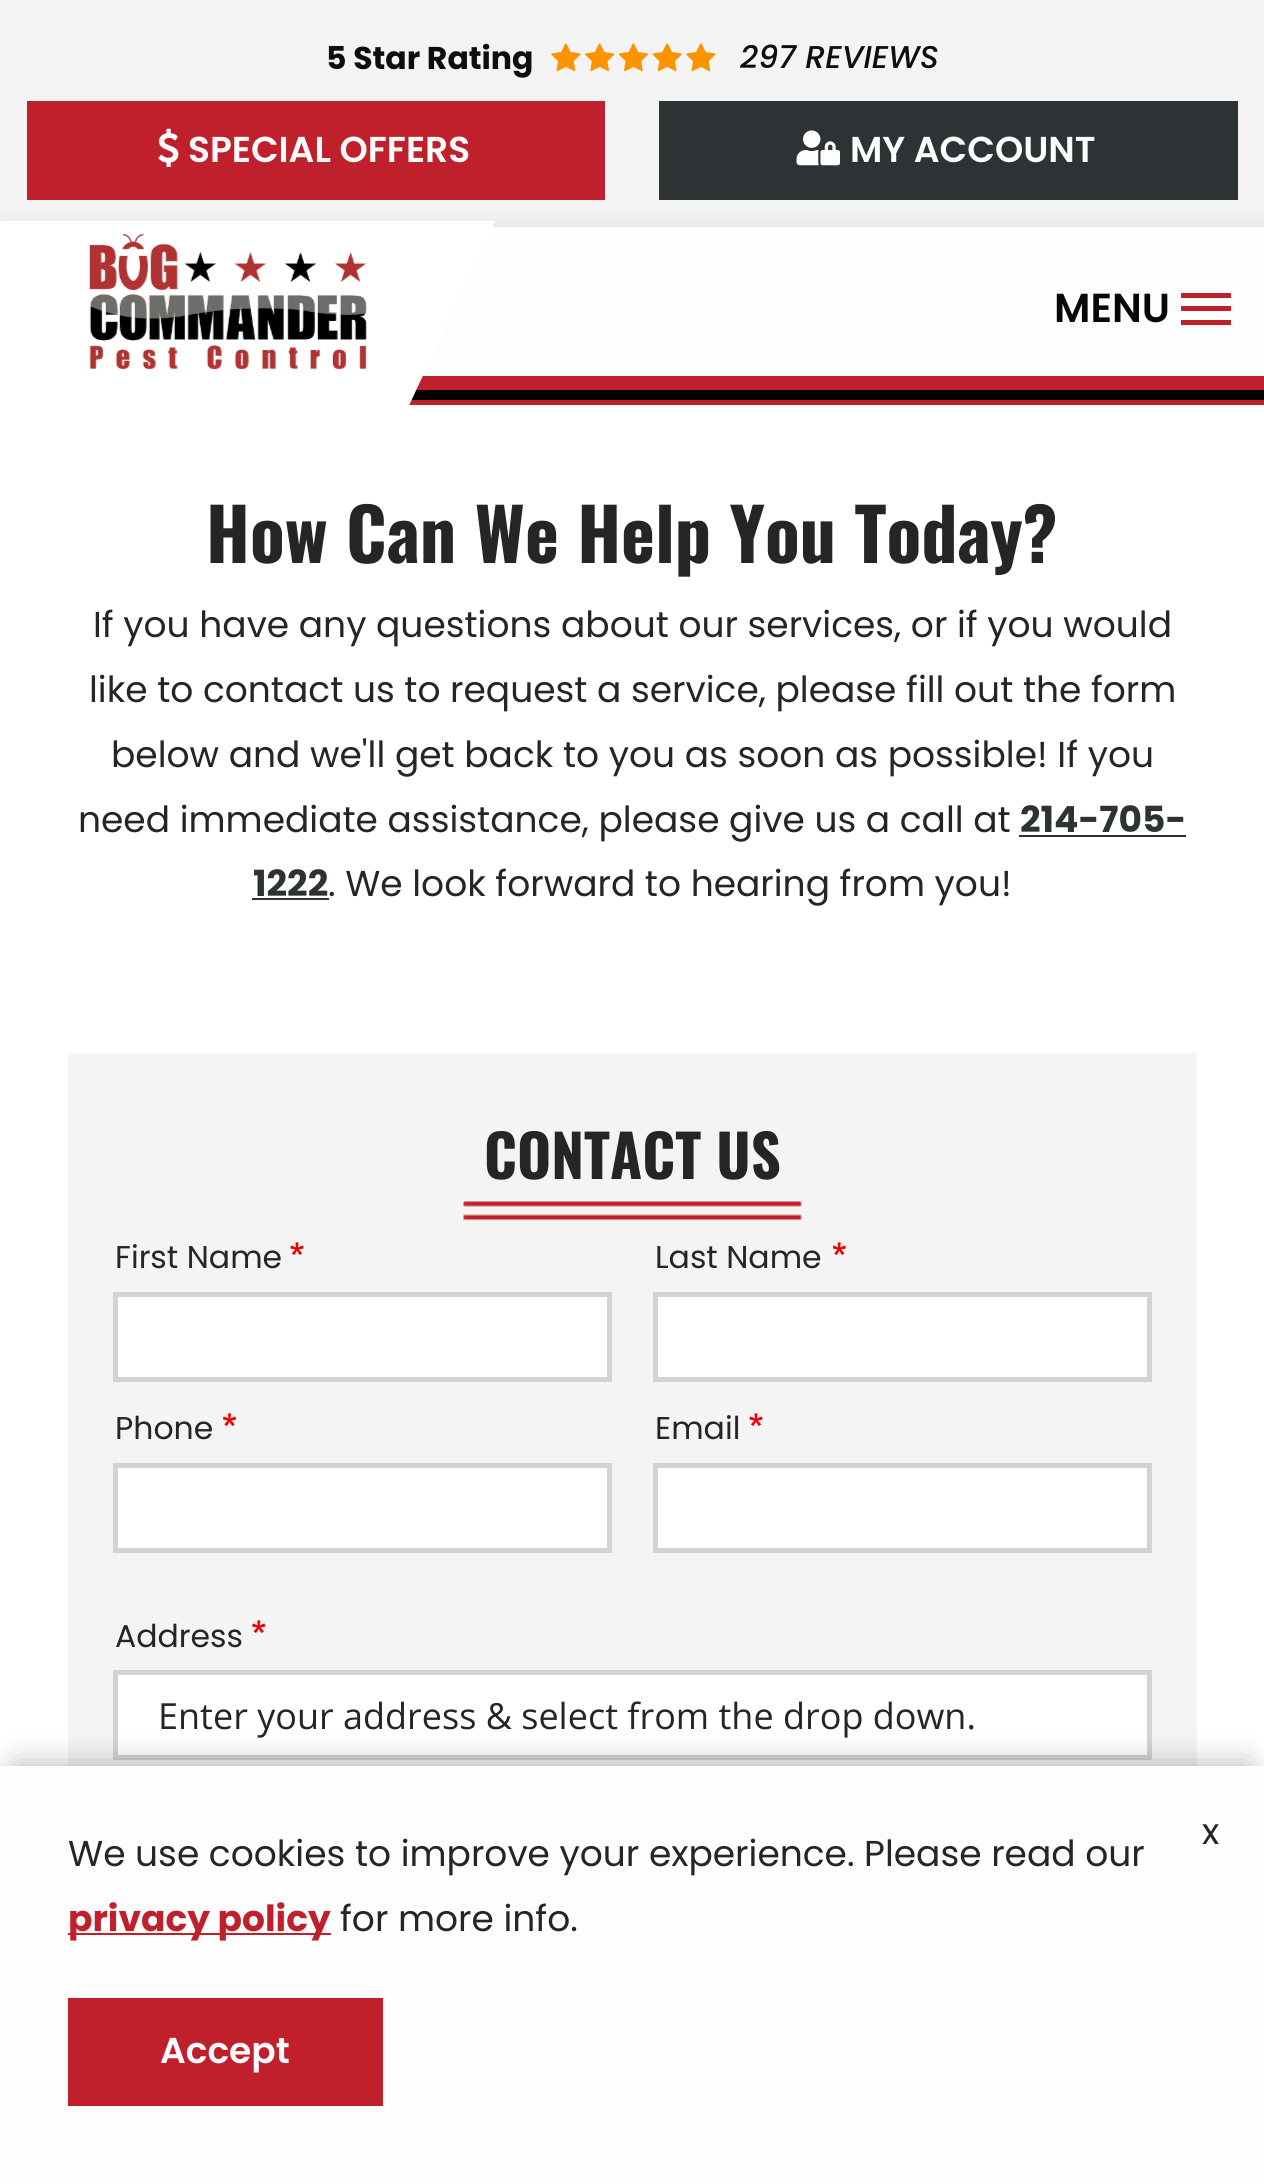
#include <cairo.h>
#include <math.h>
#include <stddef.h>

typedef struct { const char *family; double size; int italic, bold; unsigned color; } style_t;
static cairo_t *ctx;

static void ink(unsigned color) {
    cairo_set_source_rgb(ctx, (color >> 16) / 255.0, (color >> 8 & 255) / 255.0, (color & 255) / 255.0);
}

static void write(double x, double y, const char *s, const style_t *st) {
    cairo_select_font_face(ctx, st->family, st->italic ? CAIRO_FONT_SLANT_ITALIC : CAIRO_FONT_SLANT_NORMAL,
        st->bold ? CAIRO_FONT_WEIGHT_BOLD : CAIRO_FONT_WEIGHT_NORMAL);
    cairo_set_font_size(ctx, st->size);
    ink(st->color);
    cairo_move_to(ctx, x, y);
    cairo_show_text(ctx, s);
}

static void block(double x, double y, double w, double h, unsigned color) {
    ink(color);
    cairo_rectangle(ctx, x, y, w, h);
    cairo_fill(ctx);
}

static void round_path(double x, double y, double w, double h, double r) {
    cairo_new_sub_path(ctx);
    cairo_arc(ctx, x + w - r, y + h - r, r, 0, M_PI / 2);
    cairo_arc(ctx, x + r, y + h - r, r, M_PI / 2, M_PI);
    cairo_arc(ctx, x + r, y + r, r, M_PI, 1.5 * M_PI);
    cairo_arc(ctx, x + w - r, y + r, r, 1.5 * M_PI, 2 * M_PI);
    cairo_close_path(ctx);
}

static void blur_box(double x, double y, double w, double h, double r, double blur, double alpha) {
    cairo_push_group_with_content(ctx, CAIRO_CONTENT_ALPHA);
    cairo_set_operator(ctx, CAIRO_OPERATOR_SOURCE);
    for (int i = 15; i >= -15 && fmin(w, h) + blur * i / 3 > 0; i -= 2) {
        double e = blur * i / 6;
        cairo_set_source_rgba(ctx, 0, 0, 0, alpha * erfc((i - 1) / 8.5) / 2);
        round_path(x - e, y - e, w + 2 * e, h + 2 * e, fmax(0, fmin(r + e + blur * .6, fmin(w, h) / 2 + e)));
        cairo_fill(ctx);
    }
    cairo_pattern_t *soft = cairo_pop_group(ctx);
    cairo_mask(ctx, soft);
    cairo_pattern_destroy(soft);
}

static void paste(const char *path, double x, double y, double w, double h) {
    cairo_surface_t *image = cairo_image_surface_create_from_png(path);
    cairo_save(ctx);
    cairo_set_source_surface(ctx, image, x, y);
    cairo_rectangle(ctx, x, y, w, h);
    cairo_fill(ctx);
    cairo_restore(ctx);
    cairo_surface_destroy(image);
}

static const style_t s1 = {"Poppins", 31.5, 0, 1, 0x0d0e0f};
static const style_t s2 = {"Poppins Medium", 31.5, 1, 0, 0x0d0e0f};
static const style_t s3 = {"Poppins SemiBold", 36, 0, 0, 0xfdfdfd};
static const style_t s4 = {"Poppins SemiBold", 40.5, 0, 0, 0x080808};
static const style_t s5 = {"Oswald", 72, 0, 1, 0x252525};
static const style_t s6 = {"Poppins", 36, 0, 0, 0x252525};
static const style_t s7 = {"Poppins", 36, 0, 1, 0x2d3235};
static const style_t s8 = {"Oswald", 58.5, 0, 1, 0x252525};
static const style_t s9 = {"Poppins", 31.5, 0, 0, 0x252525};
static const style_t s10 = {"Open Sans", 36, 0, 0, 0x252525};
static const style_t s11 = {"Poppins", 36, 0, 1, 0xc0202c};

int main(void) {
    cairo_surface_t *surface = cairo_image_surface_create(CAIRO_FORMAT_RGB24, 1264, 2184);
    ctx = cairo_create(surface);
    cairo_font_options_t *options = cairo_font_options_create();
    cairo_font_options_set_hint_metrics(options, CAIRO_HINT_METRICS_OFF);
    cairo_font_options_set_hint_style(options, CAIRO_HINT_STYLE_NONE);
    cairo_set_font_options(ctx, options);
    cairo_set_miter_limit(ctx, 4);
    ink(0xffffff);
    cairo_paint(ctx);
    block(0, 0, 1264, 227, 0xf4f4f4);
    write(326, 69, "5 Star Rating", &s1);
    paste("pic1.png", 551, 43, 30, 29);
    paste("pic2.png", 585, 43, 30, 29);
    paste("pic3.png", 618, 43, 30, 29);
    paste("pic4.png", 652, 43, 30, 29);
    paste("pic1.png", 686, 43, 30, 29);
    write(740, 68, "297 REVIEWS", &s2);
    block(27, 101, 578, 99, 0xc0202c);
    paste("pic5.png", 158, 128, 21, 39);
    write(188, 162, "SPECIAL OFFERS", &s3);
    block(659, 101, 579, 99, 0x2d3235);
    paste("pic6.png", 796, 130, 44, 36);
    write(850, 162, "MY ACCOUNT", &s3);
    block(411, 390, 853, 10, 0x000000);
    cairo_rectangle(ctx, -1.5, 387.5, 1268, 15);
    ink(0xc0202c);
    cairo_set_line_width(ctx, 5);
    cairo_stroke(ctx);
    ink(0x000000);
    blur_box(0, 227, 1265, 162, 0, 11, 0.1);
    block(422, 227, 842, 149, 0xfdfdfd);
    block(416, 376, 848, 13, 0xc0202c);
    ink(0xffffff);
    cairo_new_path(ctx);
    cairo_move_to(ctx, -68, 221);
    cairo_line_to(ctx, 495, 221);
    cairo_line_to(ctx, 406, 412);
    cairo_line_to(ctx, -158, 412);
    cairo_close_path(ctx);
    cairo_fill(ctx);
    paste("pic7.png", 89, 233, 278, 137);
    write(1054, 322, "MENU", &s4);
    block(1181, 293, 50, 5, 0xc0202c);
    block(1181, 306, 50, 5, 0xc0202c);
    block(1181, 320, 50, 5, 0xc0202c);
    write(206, 563, "How Can We Help You Today?", &s5);
    write(93, 637, "If you have any questions about our services, or if you would", &s6);
    write(89, 702, "like to contact us to request a service, please fill out the form", &s6);
    write(111, 767, "below and we'll get back to you as soon as possible! If you", &s6);
    write(78, 832, "need immediate assistance, please give us a call at", &s6);
    write(1020, 832, "214-705-", &s7);
    block(1019, 835, 167, 2, 0x2d3235);
    write(253, 896, "1222", &s7);
    block(252, 898, 77, 2, 0x2d3235);
    write(328, 896, ". We look forward to hearing from you!", &s6);
    block(68, 1053, 1129, 713, 0xf4f4f4);
    write(484, 1179, "CONTACT US", &s8);
    paste("pic8.png", 463, 1201, 339, 20);
    write(115, 1268, "First Name", &s9);
    paste("pic9.png", 290, 1242, 14, 13);
    ink(0xffffff);
    cairo_rectangle(ctx, 115.5, 1294.5, 494, 85);
    cairo_fill_preserve(ctx);
    ink(0xd3d3d3);
    cairo_stroke(ctx);
    write(655, 1268, "Last Name", &s9);
    paste("pic10.png", 833, 1242, 13, 13);
    ink(0xffffff);
    cairo_rectangle(ctx, 655.5, 1294.5, 494, 85);
    cairo_fill_preserve(ctx);
    ink(0xd3d3d3);
    cairo_stroke(ctx);
    write(115, 1439, "Phone", &s9);
    paste("pic11.png", 223, 1413, 13, 13);
    ink(0xffffff);
    cairo_rectangle(ctx, 115.5, 1465.5, 494, 85);
    cairo_fill_preserve(ctx);
    ink(0xd3d3d3);
    cairo_stroke(ctx);
    write(655, 1439, "Email", &s9);
    paste("pic9.png", 749, 1413, 14, 13);
    ink(0xffffff);
    cairo_rectangle(ctx, 655.5, 1465.5, 494, 85);
    cairo_fill_preserve(ctx);
    ink(0xd3d3d3);
    cairo_stroke(ctx);
    write(115, 1647, "Address", &s9);
    paste("pic12.png", 252, 1620, 14, 13);
    ink(0xffffff);
    cairo_rectangle(ctx, 115.5, 1672.5, 1034, 85);
    cairo_fill_preserve(ctx);
    ink(0xd3d3d3);
    cairo_stroke(ctx);
    write(158, 1729, "Enter your address & select from the drop down.", &s10);
    ink(0x000000);
    blur_box(16, 1766, 1233, 387, 0, 16, 0.3);
    block(0, 1766, 1264, 412, 0xfdfdfd);
    write(1202, 1844, "x", &s6);
    write(68, 1866, "We use cookies to improve your experience. Please read our", &s6);
    block(68, 1933, 263, 2, 0xc0202c);
    write(68, 1931, "privacy policy", &s11);
    write(340, 1931, "for more info.", &s6);
    block(68, 1998, 315, 108, 0xc0202c);
    write(160, 2063, "Accept", &s3);
    cairo_surface_write_to_png(surface, "screenshot.png");
    cairo_font_options_destroy(options);
    cairo_destroy(ctx);
    cairo_surface_destroy(surface);
    return 0;
}
